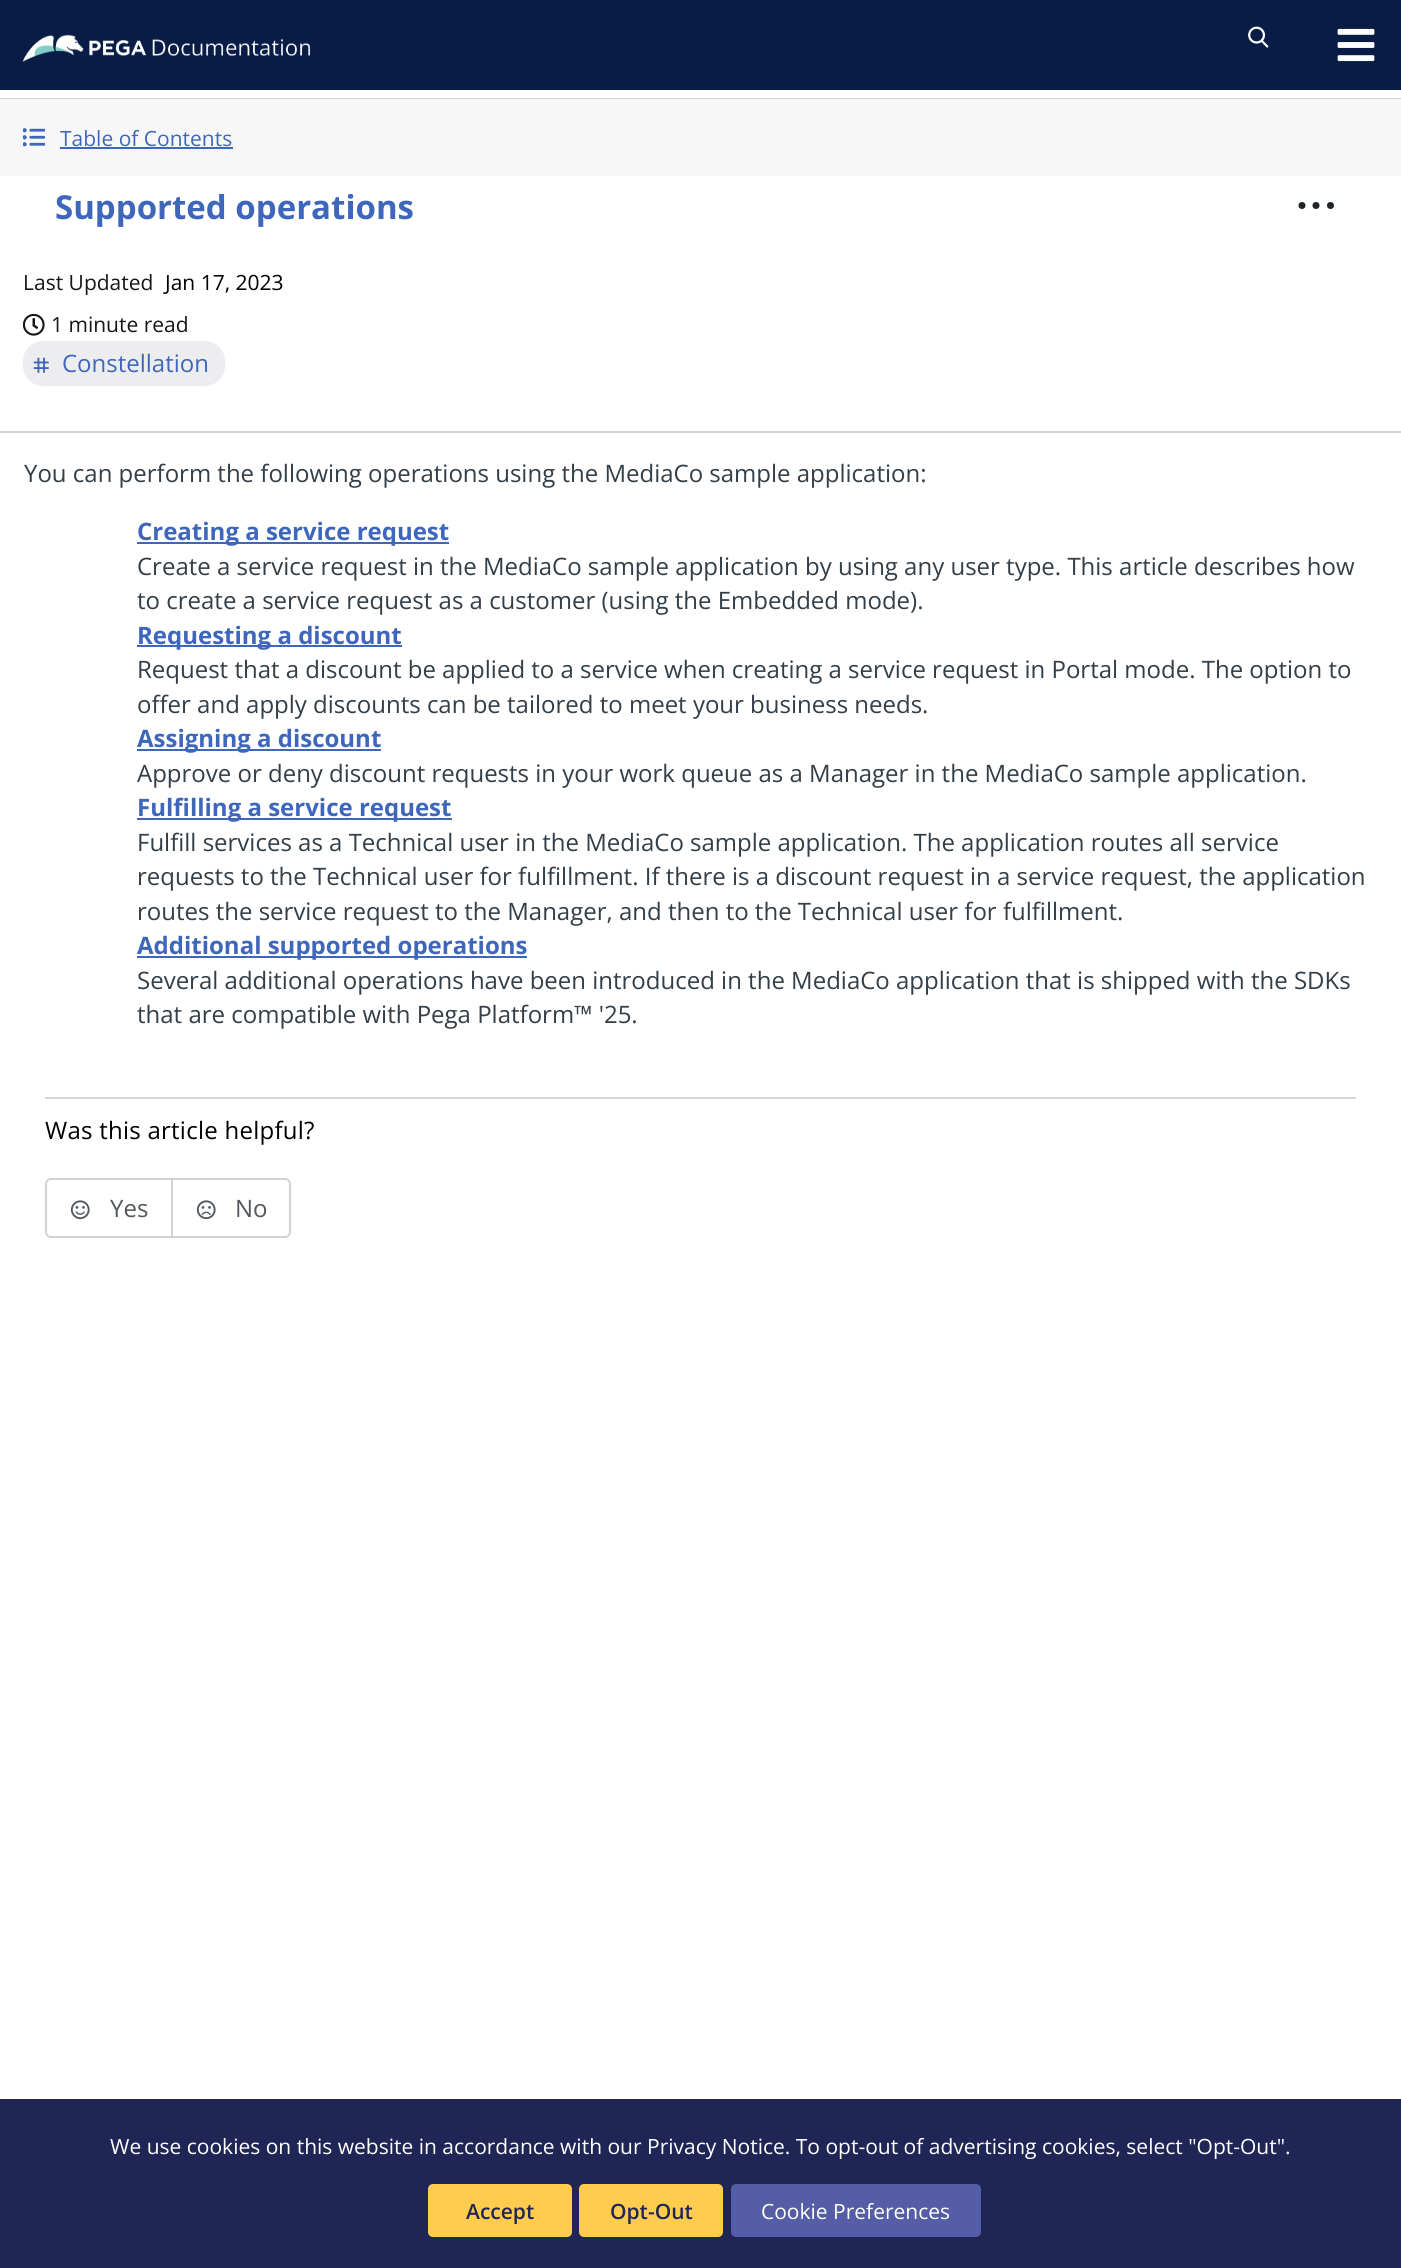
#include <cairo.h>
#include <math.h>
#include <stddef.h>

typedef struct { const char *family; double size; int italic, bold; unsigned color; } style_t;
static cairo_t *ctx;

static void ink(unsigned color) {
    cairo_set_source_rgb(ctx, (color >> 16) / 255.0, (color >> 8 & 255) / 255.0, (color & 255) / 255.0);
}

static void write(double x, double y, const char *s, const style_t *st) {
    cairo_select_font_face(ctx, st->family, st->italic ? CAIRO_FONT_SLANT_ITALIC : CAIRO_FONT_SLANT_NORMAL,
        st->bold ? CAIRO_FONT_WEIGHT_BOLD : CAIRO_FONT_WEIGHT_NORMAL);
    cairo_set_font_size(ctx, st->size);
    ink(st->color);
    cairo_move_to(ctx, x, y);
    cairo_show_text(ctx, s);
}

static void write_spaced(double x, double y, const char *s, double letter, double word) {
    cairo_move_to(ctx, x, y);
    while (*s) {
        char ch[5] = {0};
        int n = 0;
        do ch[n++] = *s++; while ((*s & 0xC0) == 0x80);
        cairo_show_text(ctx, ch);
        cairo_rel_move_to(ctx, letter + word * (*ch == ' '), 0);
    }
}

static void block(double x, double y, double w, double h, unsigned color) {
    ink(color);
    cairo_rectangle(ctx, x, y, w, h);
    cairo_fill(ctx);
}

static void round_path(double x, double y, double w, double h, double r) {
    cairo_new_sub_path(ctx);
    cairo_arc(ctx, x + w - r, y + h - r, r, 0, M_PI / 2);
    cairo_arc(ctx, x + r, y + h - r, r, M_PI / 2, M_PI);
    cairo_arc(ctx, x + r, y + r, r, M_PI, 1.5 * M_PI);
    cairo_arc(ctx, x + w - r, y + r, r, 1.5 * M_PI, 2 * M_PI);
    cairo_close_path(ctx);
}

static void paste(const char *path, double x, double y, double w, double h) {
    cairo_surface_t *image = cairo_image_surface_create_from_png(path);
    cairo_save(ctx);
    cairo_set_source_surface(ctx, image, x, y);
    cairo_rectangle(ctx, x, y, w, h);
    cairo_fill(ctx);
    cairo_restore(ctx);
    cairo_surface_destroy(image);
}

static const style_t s1 = {"Open Sans", 21, 0, 0, 0x3e67bb};
static const style_t s2 = {"Open Sans", 33, 0, 1, 0x3e67bb};
static const style_t s3 = {"Open Sans", 21, 0, 0, 0x151619};
static const style_t s4 = {"Open Sans", 21, 0, 0, 0x000000};
static const style_t s5 = {"Open Sans", 24, 0, 0, 0x3e67bb};
static const style_t s6 = {"Open Sans", 24, 0, 0, 0x323e48};
static const style_t s7 = {"Open Sans", 24, 0, 1, 0x3e67bb};
static const style_t s8 = {"Open Sans", 24, 0, 0, 0x52585d};
static const style_t s9 = {"Open Sans", 21, 0, 0, 0xffffff};
static const style_t s10 = {"Open Sans SemiBold", 21, 0, 0, 0x1f2656};

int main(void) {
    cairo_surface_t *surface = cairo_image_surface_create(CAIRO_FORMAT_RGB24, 1401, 2268);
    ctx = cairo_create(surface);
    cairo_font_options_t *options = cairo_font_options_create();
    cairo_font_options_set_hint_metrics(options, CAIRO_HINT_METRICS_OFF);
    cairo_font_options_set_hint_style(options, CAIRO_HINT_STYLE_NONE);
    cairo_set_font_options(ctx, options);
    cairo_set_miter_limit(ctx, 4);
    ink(0xffffff);
    cairo_paint(ctx);
    block(0, 0, 1401, 90, 0x081c45);
    paste("pic1.png", 22, 34, 289, 28);
    paste("pic2.png", 1248, 26, 21, 22);
    paste("pic3.png", 1337, 28, 38, 34);
    block(0, 98, 1401, 1, 0xd4d5d6);
    block(0, 99, 1401, 77, 0xf7f7f7);
    paste("pic4.png", 23, 128, 22, 19);
    write(60, 146, "Table of Contents", &s1);
    block(60, 147, 173, 2, 0x3e67bb);
    block(0, 431, 1401, 2, 0xd4d5d6);
    write(55, 219, "Supported operations", &s2);
    ink(0x212529);
    cairo_new_path(ctx);
    cairo_arc(ctx, 1302, 205.5, 3.5, 0, 2 * M_PI);
    cairo_fill(ctx);
    cairo_arc(ctx, 1316, 205.5, 3.5, 0, 2 * M_PI);
    cairo_fill(ctx);
    cairo_arc(ctx, 1330.5, 205.5, 3.5, 0, 2 * M_PI);
    cairo_fill(ctx);
    write(23, 290, "Last Updated", &s3);
    write(165, 290, "Jan 17, 2023", &s4);
    paste("pic5.png", 23, 314, 22, 22);
    write(51, 332, "1 minute read", &s3);
    ink(0xededef);
    round_path(23, 341, 202, 45, 20);
    cairo_fill(ctx);
    paste("pic6.png", 33, 357, 16, 16);
    write(62, 372, "Constellation", &s5);
    write(24, 482, "You can perform the following operations using the MediaCo sample application:", &s6);
    block(137, 542, 312, 2, 0x3e67bb);
    write(137, 540, "Creating a service request", &s7);
    write(137, 575, "Create a service request in the MediaCo sample application by using any user type. This article describes how", &s6);
    write(137, 609, "to create a service request as a customer (using the Embedded mode).", &s6);
    block(137, 645, 265, 2, 0x3e67bb);
    write(137, 644, "Requesting a discount", &s7);
    write(137, 678, "Request that a discount be applied to a service when creating a service request in Portal mode. The option to", &s6);
    write(137, 713, "offer and apply discounts can be tailored to meet your business needs.", &s6);
    block(137, 749, 244, 2, 0x3e67bb);
    write(137, 747, "Assigning a discount", &s7);
    write(137, 782, "Approve or deny discount requests in your work queue as a Manager in the MediaCo sample application.", &s6);
    block(137, 818, 315, 2, 0x3e67bb);
    write(137, 816, "Fulfilling a service request", &s7);
    write(137, 851, "Fulfill services as a Technical user in the MediaCo sample application. The application routes all service", &s6);
    write(137, 885, "requests to the Technical user for fulfillment. If there is a discount request in a service request, the application", &s6);
    write(137, 920, "routes the service request to the Manager, and then to the Technical user for fulfillment.", &s6);
    block(137, 956, 390, 2, 0x3e67bb);
    write(137, 954, "Additional supported operations", &s7);
    write(137, 989, "Several additional operations have been introduced in the MediaCo application that is shipped with the SDKs", &s6);
    write(137, 1023, "that are compatible with Pega Platform™ '25.", &s6);
    block(45, 1097, 1311, 2, 0xd4d5d6);
    ink(0x000000);
    write_spaced(45, 1139, "Was this article helpful?", 0.25, 0);
    round_path(46, 1179, 244, 58, 5);
    ink(0xd2d2d2);
    cairo_stroke(ctx);
    block(171, 1179, 2, 57, 0xd2d2d2);
    paste("pic7.png", 70, 1200, 20, 20);
    write(110, 1217, "Yes", &s8);
    paste("pic8.png", 196, 1200, 20, 20);
    write(235, 1217, "No", &s8);
    block(0, 2099, 1401, 169, 0x1f2656);
    write(110, 2154, "We use cookies on this website in accordance with our Privacy Notice. To opt-out of advertising cookies, select \"Opt-Out\".", &s9);
    ink(0xffcc4d);
    round_path(428, 2184, 144, 53, 5);
    cairo_fill(ctx);
    write(466, 2219, "Accept", &s10);
    ink(0xffcc4d);
    round_path(579, 2184, 144, 53, 5);
    cairo_fill(ctx);
    write(610, 2219, "Opt-Out", &s10);
    ink(0x545da6);
    round_path(731, 2184, 250, 53, 5);
    cairo_fill(ctx);
    write(761, 2219, "Cookie Preferences", &s9);
    cairo_surface_write_to_png(surface, "screenshot.png");
    cairo_font_options_destroy(options);
    cairo_destroy(ctx);
    cairo_surface_destroy(surface);
    return 0;
}
